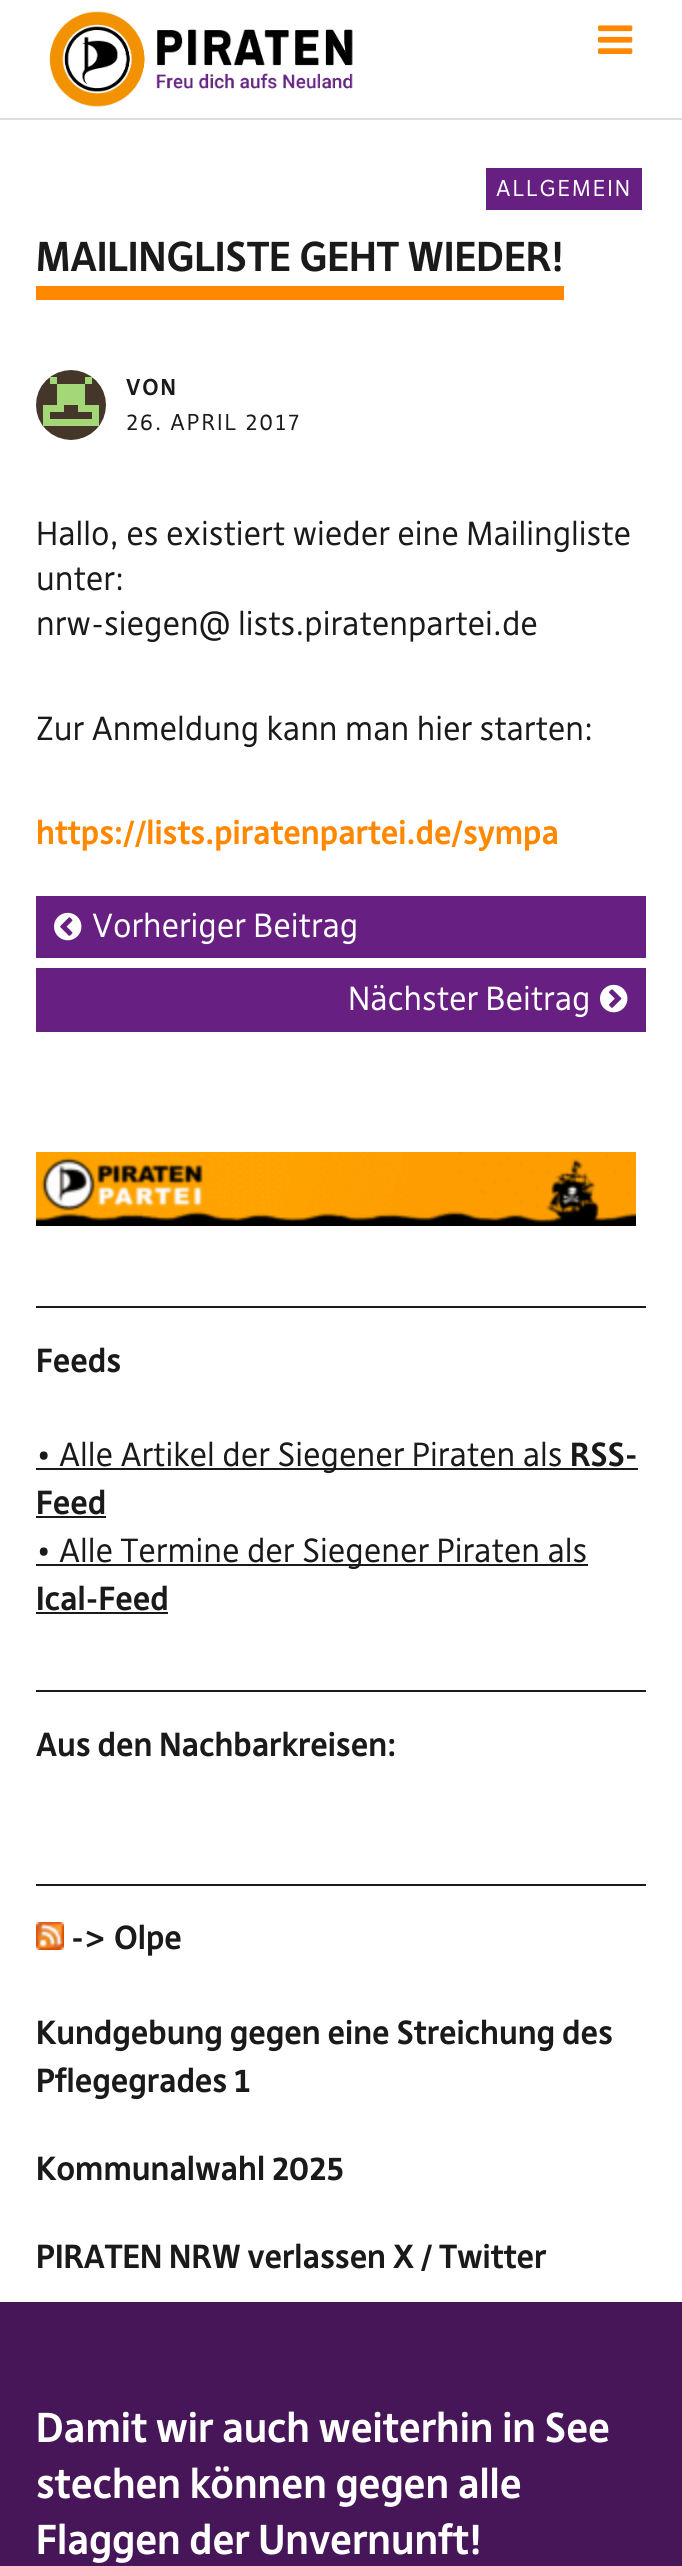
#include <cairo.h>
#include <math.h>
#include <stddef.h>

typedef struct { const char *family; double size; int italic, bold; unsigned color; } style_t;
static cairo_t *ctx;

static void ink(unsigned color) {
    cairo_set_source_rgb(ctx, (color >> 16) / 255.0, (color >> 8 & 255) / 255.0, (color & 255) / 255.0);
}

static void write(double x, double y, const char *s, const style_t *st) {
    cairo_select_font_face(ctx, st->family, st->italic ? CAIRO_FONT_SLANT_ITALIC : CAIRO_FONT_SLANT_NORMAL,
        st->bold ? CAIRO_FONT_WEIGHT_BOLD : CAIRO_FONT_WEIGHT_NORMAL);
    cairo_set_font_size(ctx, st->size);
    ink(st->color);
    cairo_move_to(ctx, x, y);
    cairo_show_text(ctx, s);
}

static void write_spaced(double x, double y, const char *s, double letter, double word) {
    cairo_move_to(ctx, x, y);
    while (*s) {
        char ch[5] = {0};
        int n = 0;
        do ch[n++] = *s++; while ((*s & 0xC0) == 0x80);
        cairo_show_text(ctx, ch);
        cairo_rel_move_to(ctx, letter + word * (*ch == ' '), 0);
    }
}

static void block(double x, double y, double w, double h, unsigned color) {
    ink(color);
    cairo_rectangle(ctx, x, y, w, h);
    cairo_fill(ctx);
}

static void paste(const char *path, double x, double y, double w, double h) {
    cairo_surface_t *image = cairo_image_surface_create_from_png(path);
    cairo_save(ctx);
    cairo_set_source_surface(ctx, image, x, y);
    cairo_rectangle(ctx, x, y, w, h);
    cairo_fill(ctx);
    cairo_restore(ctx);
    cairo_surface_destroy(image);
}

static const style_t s1 = {"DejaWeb", 40, 0, 1, 0x1a1a1a};
static const style_t s2 = {"DejaWeb", 32, 0, 0, 0x1a1a1a};
static const style_t s3 = {"DejaWeb", 32, 0, 1, 0xff8800};
static const style_t s4 = {"DejaWeb", 32, 0, 0, 0xffffff};
static const style_t s5 = {"DejaWeb", 32, 0, 1, 0x1a1a1a};
static const style_t s6 = {"DejaWeb", 40, 0, 1, 0xffffff};

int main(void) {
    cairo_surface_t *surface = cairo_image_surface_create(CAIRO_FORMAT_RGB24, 682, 2566);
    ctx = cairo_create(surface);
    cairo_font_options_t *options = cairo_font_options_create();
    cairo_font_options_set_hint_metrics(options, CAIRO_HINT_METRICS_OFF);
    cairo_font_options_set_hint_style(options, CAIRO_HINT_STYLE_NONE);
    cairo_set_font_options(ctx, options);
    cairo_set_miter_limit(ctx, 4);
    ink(0xffffff);
    cairo_paint(ctx);
    block(0, 118, 682, 2, 0xdddddd);
    paste("pic1.png", 49, 11, 304, 96);
    paste("pic2.png", 598, 25, 35, 29);
    block(486, 168, 156, 42, 0x672082);
    cairo_select_font_face(ctx, "DejaWeb", CAIRO_FONT_SLANT_NORMAL, CAIRO_FONT_WEIGHT_NORMAL);
    cairo_set_font_size(ctx, 22);
    ink(0xffffff);
    write_spaced(496, 196, "ALLGEMEIN", 2, 0);
    block(36, 286, 528, 14, 0xff8800);
    write(36, 271, "MAILINGLISTE GEHT WIEDER!", &s1);
    paste("pic3.png", 36, 370, 70, 70);
    cairo_set_font_size(ctx, 22);
    write_spaced(126, 395, "VON", 2, 0);
    cairo_select_font_face(ctx, "DejaWeb", CAIRO_FONT_SLANT_NORMAL, CAIRO_FONT_WEIGHT_NORMAL);
    write_spaced(126, 430, "26. APRIL 2017", 2, 0);
    write(36, 545, "Hallo, es existiert wieder eine Mailingliste", &s2);
    write(36, 590, "unter:", &s2);
    write(36, 635, "nrw-siegen@ lists.piratenpartei.de", &s2);
    write(36, 740, "Zur Anmeldung kann man hier starten:", &s2);
    write(36, 844, "https://lists.piratenpartei.de/sympa", &s3);
    block(36, 896, 610, 62, 0x672082);
    paste("pic4.png", 54, 912, 28, 29);
    write(92, 937, "Vorheriger Beitrag", &s4);
    block(36, 968, 610, 64, 0x672082);
    write(348, 1010, "Nächster Beitrag", &s4);
    paste("pic5.png", 600, 984, 28, 29);
    paste("pic6.png", 36, 1152, 600, 74);
    block(36, 1306, 610, 2, 0x1a1a1a);
    write(36, 1372, "Feeds", &s5);
    block(36, 1468, 602, 2, 0x1a1a1a);
    write(36, 1466, "• Alle Artikel der Siegener Piraten als", &s2);
    write(570, 1466, "RSS-", &s5);
    write(36, 1514, "Feed", &s5);
    block(36, 1516, 70, 2, 0x1a1a1a);
    block(36, 1564, 552, 2, 0x1a1a1a);
    write(36, 1562, "• Alle Termine der Siegener Piraten als", &s2);
    write(36, 1610, "Ical-Feed", &s5);
    block(36, 1612, 132, 2, 0x1a1a1a);
    block(36, 1690, 610, 2, 0x1a1a1a);
    write(36, 1756, "Aus den Nachbarkreisen:", &s5);
    block(36, 1884, 610, 2, 0x1a1a1a);
    paste("pic7.png", 36, 1922, 28, 28);
    write(71, 1949, "-> Olpe", &s5);
    write(36, 2044, "Kundgebung gegen eine Streichung des", &s5);
    write(36, 2092, "Pflegegrades 1", &s5);
    write(36, 2180, "Kommunalwahl 2025", &s5);
    write(36, 2268, "PIRATEN NRW verlassen X / Twitter", &s5);
    block(0, 2302, 682, 264, 0x471659);
    write(36, 2442, "Damit wir auch weiterhin in See", &s6);
    write(36, 2498, "stechen können gegen alle", &s6);
    write(36, 2554, "Flaggen der Unvernunft!", &s6);
    cairo_surface_write_to_png(surface, "screenshot.png");
    cairo_font_options_destroy(options);
    cairo_destroy(ctx);
    cairo_surface_destroy(surface);
    return 0;
}
